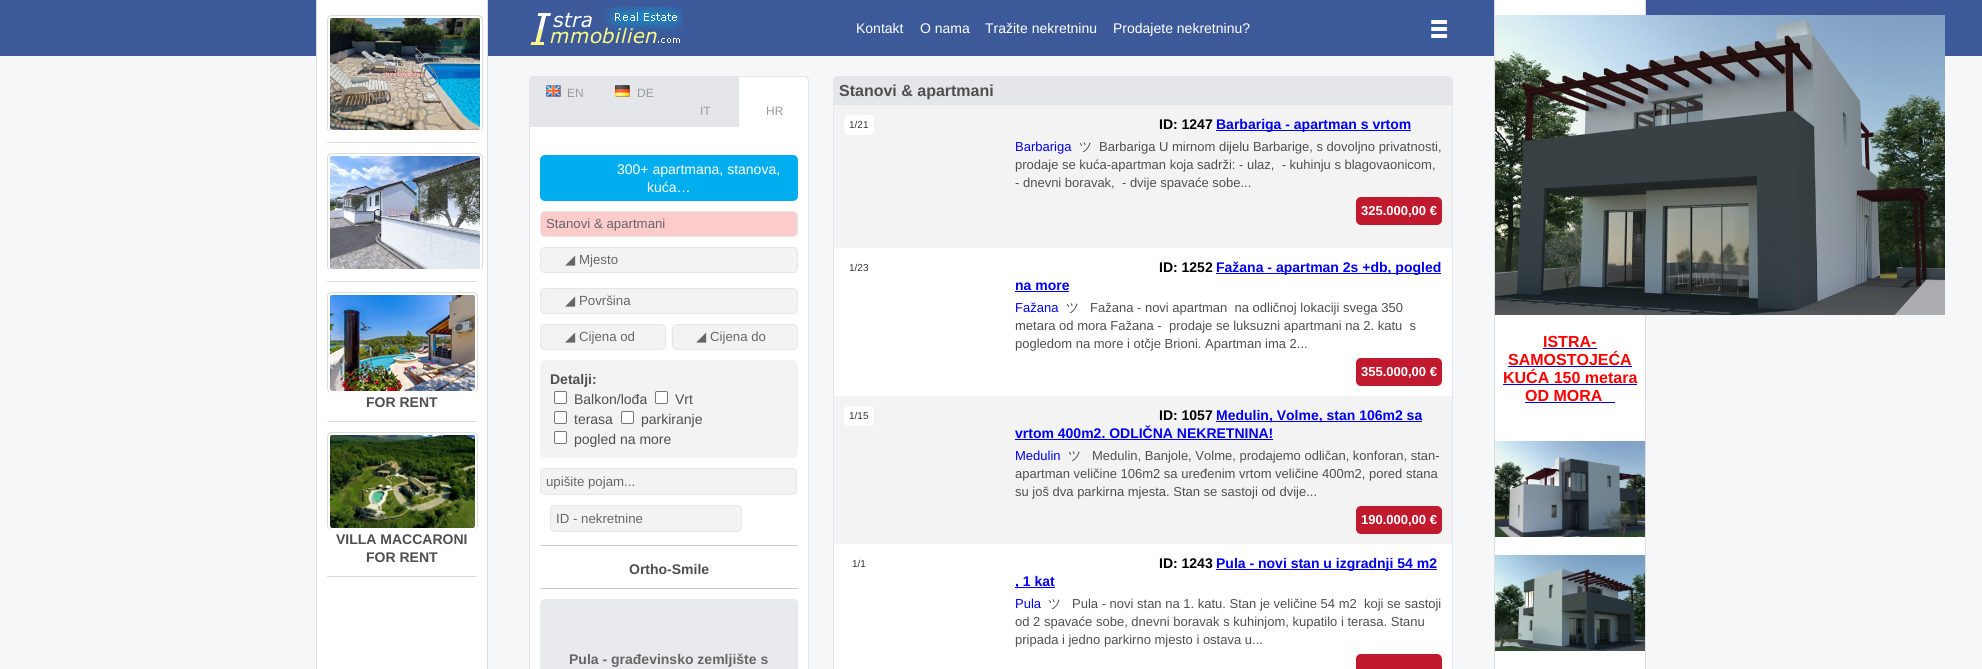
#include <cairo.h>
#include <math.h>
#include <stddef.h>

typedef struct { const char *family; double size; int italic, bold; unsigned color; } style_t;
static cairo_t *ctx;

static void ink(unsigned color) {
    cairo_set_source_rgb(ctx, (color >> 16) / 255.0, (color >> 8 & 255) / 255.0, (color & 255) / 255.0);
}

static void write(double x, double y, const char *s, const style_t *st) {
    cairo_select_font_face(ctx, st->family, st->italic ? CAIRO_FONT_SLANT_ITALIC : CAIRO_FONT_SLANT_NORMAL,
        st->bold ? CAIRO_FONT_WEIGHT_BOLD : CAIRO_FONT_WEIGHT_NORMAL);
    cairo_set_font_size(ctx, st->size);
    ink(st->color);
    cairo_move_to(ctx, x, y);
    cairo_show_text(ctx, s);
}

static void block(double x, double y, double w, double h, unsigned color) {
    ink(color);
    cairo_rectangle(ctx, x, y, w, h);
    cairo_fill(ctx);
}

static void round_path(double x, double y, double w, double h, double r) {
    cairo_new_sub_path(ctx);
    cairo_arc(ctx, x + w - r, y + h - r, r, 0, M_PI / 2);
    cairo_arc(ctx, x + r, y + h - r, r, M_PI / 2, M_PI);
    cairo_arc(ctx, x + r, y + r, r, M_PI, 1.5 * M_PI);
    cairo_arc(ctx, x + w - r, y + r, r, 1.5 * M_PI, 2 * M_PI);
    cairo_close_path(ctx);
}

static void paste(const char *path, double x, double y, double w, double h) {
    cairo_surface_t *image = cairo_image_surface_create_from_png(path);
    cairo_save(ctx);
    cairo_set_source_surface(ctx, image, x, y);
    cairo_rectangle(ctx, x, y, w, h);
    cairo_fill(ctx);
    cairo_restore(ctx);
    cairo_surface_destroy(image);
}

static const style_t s1 = {"Liberation Sans", 14, 0, 0, 0xffffff};
static const style_t s2 = {"Liberation Sans", 12, 0, 0, 0x999999};
static const style_t s3 = {"Liberation Sans", 13.25, 0, 0, 0x666666};
static const style_t s4 = {"DejaVu Sans", 13.25, 0, 0, 0x666666};
static const style_t s5 = {"Liberation Sans", 14, 0, 1, 0x4f4f4f};
static const style_t s6 = {"Liberation Sans", 14, 0, 0, 0x4f4f4f};
static const style_t s7 = {"Liberation Sans", 14, 0, 1, 0x666666};
static const style_t s8 = {"Liberation Sans", 16, 0, 1, 0x4f4f4f};
static const style_t s9 = {"Liberation Sans", 10, 0, 0, 0x333333};
static const style_t s10 = {"Liberation Sans", 14, 0, 1, 0x000000};
static const style_t s11 = {"Liberation Sans", 14, 0, 1, 0x0000ee};
static const style_t s12 = {"Liberation Sans", 13, 0, 0, 0x0000ee};
static const style_t s13 = {"WenQuanYi Zen Hei Medium", 13, 0, 0, 0x4f4f4f};
static const style_t s14 = {"Liberation Sans", 13, 0, 0, 0x4f4f4f};
static const style_t s15 = {"Liberation Sans", 13, 0, 1, 0xffffff};
static const style_t s16 = {"Liberation Sans", 16, 0, 1, 0xff0000};

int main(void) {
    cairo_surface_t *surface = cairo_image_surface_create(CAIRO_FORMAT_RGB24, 1982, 669);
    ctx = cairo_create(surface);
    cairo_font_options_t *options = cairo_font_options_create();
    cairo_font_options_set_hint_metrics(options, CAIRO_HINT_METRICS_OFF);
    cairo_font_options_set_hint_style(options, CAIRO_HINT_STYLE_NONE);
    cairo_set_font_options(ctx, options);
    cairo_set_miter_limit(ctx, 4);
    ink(0xf6f7f8);
    cairo_paint(ctx);
    block(0, 0, 1982, 56, 0x3c5a99);
    paste("pic1.png", 530, 7, 153, 38);
    write(856, 33, "Kontakt", &s1);
    write(920, 33, "O nama", &s1);
    write(985, 33, "Tražite nekretninu", &s1);
    write(1113, 33, "Prodajete nekretninu?", &s1);
    paste("pic2.png", 1430, 20, 18, 18);
    ink(0xe5e6e9);
    cairo_new_path(ctx);
    cairo_move_to(ctx, 534, 76);
    cairo_line_to(ctx, 804, 76);
    cairo_curve_to(ctx, 807, 76, 809, 78, 809, 81);
    cairo_line_to(ctx, 809, 127);
    cairo_line_to(ctx, 529, 127);
    cairo_line_to(ctx, 529, 81);
    cairo_curve_to(ctx, 529, 78, 531, 76, 534, 76);
    cairo_close_path(ctx);
    cairo_fill(ctx);
    cairo_set_fill_rule(ctx, CAIRO_FILL_RULE_EVEN_ODD);
    cairo_new_path(ctx);
    cairo_move_to(ctx, 534, 76);
    cairo_line_to(ctx, 804, 76);
    cairo_curve_to(ctx, 807, 76, 809, 78, 809, 81);
    cairo_line_to(ctx, 809, 127);
    cairo_line_to(ctx, 529, 127);
    cairo_line_to(ctx, 529, 81);
    cairo_curve_to(ctx, 529, 78, 531, 76, 534, 76);
    cairo_close_path(ctx);
    cairo_move_to(ctx, 534, 77);
    cairo_line_to(ctx, 804, 77);
    cairo_curve_to(ctx, 806, 77, 808, 79, 808, 81);
    cairo_line_to(ctx, 808, 127);
    cairo_line_to(ctx, 530, 127);
    cairo_line_to(ctx, 530, 81);
    cairo_curve_to(ctx, 530, 79, 532, 77, 534, 77);
    cairo_close_path(ctx);
    cairo_fill(ctx);
    paste("pic3.png", 546, 85, 15, 12);
    write(567, 97, "EN", &s2);
    paste("pic4.png", 615, 85, 15, 12);
    write(637, 97, "DE", &s2);
    write(700, 115, "IT", &s2);
    ink(0xffffff);
    cairo_new_path(ctx);
    cairo_move_to(ctx, 739, 77);
    cairo_line_to(ctx, 803, 77);
    cairo_curve_to(ctx, 806, 77, 808, 79, 808, 82);
    cairo_line_to(ctx, 808, 127);
    cairo_line_to(ctx, 739, 127);
    cairo_close_path(ctx);
    cairo_fill(ctx);
    write(766, 115, "HR", &s2);
    block(530, 127, 278, 542, 0xffffff);
    ink(0xe5e6e9);
    cairo_new_path(ctx);
    cairo_move_to(ctx, 529, 127);
    cairo_line_to(ctx, 809, 127);
    cairo_line_to(ctx, 809, 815);
    cairo_curve_to(ctx, 809, 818, 807, 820, 804, 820);
    cairo_line_to(ctx, 534, 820);
    cairo_curve_to(ctx, 531, 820, 529, 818, 529, 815);
    cairo_close_path(ctx);
    cairo_move_to(ctx, 530, 127);
    cairo_line_to(ctx, 808, 127);
    cairo_line_to(ctx, 808, 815);
    cairo_curve_to(ctx, 808, 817, 806, 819, 804, 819);
    cairo_line_to(ctx, 534, 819);
    cairo_curve_to(ctx, 532, 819, 530, 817, 530, 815);
    cairo_close_path(ctx);
    cairo_fill(ctx);
    ink(0x00aeef);
    round_path(540, 155, 258, 46, 5);
    cairo_fill(ctx);
    write(617, 174, "300+ apartmana, stanova,", &s1);
    write(647, 192, "kuća…", &s1);
    ink(0xffcccc);
    round_path(540.5, 211.5, 257, 25, 4.5);
    cairo_fill_preserve(ctx);
    ink(0xe5e6e9);
    cairo_set_line_width(ctx, 1);
    cairo_stroke(ctx);
    write(546, 228, "Stanovi & apartmani", &s3);
    ink(0xf3f3f3);
    round_path(540.5, 247.5, 257, 25, 4.5);
    cairo_fill_preserve(ctx);
    ink(0xe5e6e9);
    cairo_stroke(ctx);
    write(565, 264, "◢", &s4);
    write(579, 264, "Mjesto", &s3);
    ink(0xf3f3f3);
    round_path(540.5, 288.5, 257, 25, 4.5);
    cairo_fill_preserve(ctx);
    ink(0xe5e6e9);
    cairo_stroke(ctx);
    write(565, 305, "◢", &s4);
    write(579, 305, "Površina", &s3);
    ink(0xf3f3f3);
    round_path(540.5, 324.5, 125, 25, 4.5);
    cairo_fill_preserve(ctx);
    ink(0xe5e6e9);
    cairo_stroke(ctx);
    write(565, 341, "◢", &s4);
    write(579, 341, "Cijena od", &s3);
    ink(0xf3f3f3);
    round_path(672.5, 324.5, 125, 25, 4.5);
    cairo_fill_preserve(ctx);
    ink(0xe5e6e9);
    cairo_stroke(ctx);
    write(696, 341, "◢", &s4);
    write(710, 341, "Cijena do", &s3);
    ink(0xf3f3f3);
    round_path(540, 360, 258, 98, 5);
    cairo_fill(ctx);
    write(550, 384, "Detalji:", &s5);
    ink(0xffffff);
    round_path(554.5, 391.5, 12, 12, 1.5);
    cairo_fill_preserve(ctx);
    ink(0x767676);
    cairo_stroke(ctx);
    write(574, 404, "Balkon/lođa", &s6);
    ink(0xffffff);
    round_path(655.5, 391.5, 12, 12, 1.5);
    cairo_fill_preserve(ctx);
    ink(0x767676);
    cairo_stroke(ctx);
    write(675, 404, "Vrt", &s6);
    ink(0xffffff);
    round_path(554.5, 411.5, 12, 12, 1.5);
    cairo_fill_preserve(ctx);
    ink(0x767676);
    cairo_stroke(ctx);
    write(574, 424, "terasa", &s6);
    ink(0xffffff);
    round_path(621.5, 411.5, 12, 12, 1.5);
    cairo_fill_preserve(ctx);
    ink(0x767676);
    cairo_stroke(ctx);
    write(641, 424, "parkiranje", &s6);
    ink(0xffffff);
    round_path(554.5, 431.5, 12, 12, 1.5);
    cairo_fill_preserve(ctx);
    ink(0x767676);
    cairo_stroke(ctx);
    write(574, 444, "pogled na more", &s6);
    ink(0xf3f3f3);
    round_path(540.5, 468.5, 256, 26, 4.5);
    cairo_fill_preserve(ctx);
    ink(0xe5e6e9);
    cairo_stroke(ctx);
    write(546, 486, "upišite pojam...", &s3);
    ink(0xf3f3f3);
    round_path(550.5, 505.5, 191, 26, 4.5);
    cairo_fill_preserve(ctx);
    ink(0xe5e6e9);
    cairo_stroke(ctx);
    write(556, 523, "ID - nekretnine", &s3);
    block(540, 545, 258, 1, 0xcccccc);
    write(629, 574, "Ortho-Smile", &s5);
    block(540, 588, 258, 1, 0xcccccc);
    ink(0xe9eaed);
    round_path(540, 599, 258, 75, 5);
    cairo_fill(ctx);
    write(569, 664, "Pula - građevinsko zemljište s", &s7);
    ink(0xffffff);
    cairo_new_path(ctx);
    cairo_move_to(ctx, 838, 76.5);
    cairo_line_to(ctx, 1448, 76.5);
    cairo_curve_to(ctx, 1450.5, 76.5, 1452.5, 78.5, 1452.5, 81);
    cairo_line_to(ctx, 1452.5, 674.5);
    cairo_line_to(ctx, 833.5, 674.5);
    cairo_line_to(ctx, 833.5, 81);
    cairo_curve_to(ctx, 833.5, 78.5, 835.5, 76.5, 838, 76.5);
    cairo_close_path(ctx);
    cairo_fill_preserve(ctx);
    ink(0xe5e6e9);
    cairo_stroke(ctx);
    block(834, 77, 618, 28, 0xe5e6e9);
    write(839, 96, "Stanovi & apartmani", &s8);
    block(834, 105, 618, 143, 0xf3f3f3);
    ink(0xffffff);
    round_path(844, 115, 30, 20, 5);
    cairo_fill(ctx);
    write(849, 128, "1/21", &s9);
    write(1159, 129, "ID: 1247", &s10);
    block(1216, 130, 195, 1, 0x0000ee);
    write(1216, 129, "Barbariga - apartman s vrtom", &s11);
    write(1015, 151, "Barbariga", &s12);
    write(1079, 151, "ツ", &s13);
    write(1099, 151, "Barbariga U mirnom dijelu Barbarige, s dovoljno privatnosti,", &s14);
    write(1015, 169, "prodaje se kuća-apartman koja sadrži: - ulaz,  - kuhinju s blagovaonicom,", &s14);
    write(1015, 187, "- dnevni boravak,  - dvije spavaće sobe...", &s14);
    ink(0xc11a2e);
    round_path(1356, 197, 86, 28, 5);
    cairo_fill(ctx);
    write(1361, 215, "325.000,00 €", &s15);
    write(849, 271, "1/23", &s9);
    write(1159, 272, "ID: 1252", &s10);
    block(1216, 273, 225, 1, 0x0000ee);
    write(1216, 272, "Fažana - apartman 2s +db, pogled", &s11);
    write(1015, 290, "na more", &s11);
    block(1015, 291, 54, 1, 0x0000ee);
    write(1015, 312, "Fažana", &s12);
    write(1066, 312, "ツ", &s13);
    write(1090, 312, "Fažana - novi apartman  na odličnoj lokaciji svega 350", &s14);
    write(1015, 330, "metara od mora Fažana -  prodaje se luksuzni apartmani na 2. katu  s", &s14);
    write(1015, 348, "pogledom na more i otčje Brioni. Apartman ima 2...", &s14);
    ink(0xc11a2e);
    round_path(1356, 358, 86, 28, 5);
    cairo_fill(ctx);
    write(1361, 376, "355.000,00 €", &s15);
    block(834, 396, 618, 148, 0xf3f3f3);
    ink(0xffffff);
    round_path(844, 406, 30, 20, 5);
    cairo_fill(ctx);
    write(849, 419, "1/15", &s9);
    write(1159, 420, "ID: 1057", &s10);
    block(1216, 421, 206, 1, 0x0000ee);
    write(1216, 420, "Medulin, Volme, stan 106m2 sa", &s11);
    write(1015, 438, "vrtom 400m2. ODLIČNA NEKRETNINA!", &s11);
    block(1015, 439, 258, 1, 0x0000ee);
    write(1015, 460, "Medulin", &s12);
    write(1068, 460, "ツ", &s13);
    write(1092, 460, "Medulin, Banjole, Volme, prodajemo odličan, konforan, stan-", &s14);
    write(1015, 478, "apartman veličine 106m2 sa uređenim vrtom veličine 400m2, pored stana", &s14);
    write(1015, 496, "su još dva parkirna mjesta. Stan se sastoji od dvije...", &s14);
    ink(0xc11a2e);
    round_path(1356, 506, 86, 28, 5);
    cairo_fill(ctx);
    write(1361, 524, "190.000,00 €", &s15);
    write(852, 567, "1/1", &s9);
    write(1159, 568, "ID: 1243", &s10);
    block(1216, 569, 221, 1, 0x0000ee);
    write(1216, 568, "Pula - novi stan u izgradnji 54 m2", &s11);
    block(1015, 587, 40, 1, 0x0000ee);
    write(1015, 586, ", 1 kat", &s11);
    write(1015, 608, "Pula", &s12);
    write(1048, 608, "ツ", &s13);
    write(1072, 608, "Pula - novi stan na 1. katu. Stan je veličine 54 m2  koji se sastoji", &s14);
    write(1015, 626, "od 2 spavaće sobe, dnevni boravak s kuhinjom, kupatilo i terasa. Stanu", &s14);
    write(1015, 644, "pripada i jedno parkirno mjesto i ostava u...", &s14);
    ink(0xc11a2e);
    round_path(1356, 654, 86, 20, 5);
    cairo_fill(ctx);
    block(1495, 0, 150, 669, 0xffffff);
    block(1645, 0, 1, 669, 0xdddddd);
    block(1494, 0, 1, 669, 0xdddddd);
    paste("pic5.png", 1495, 15, 450, 300);
    write(1543, 347, "ISTRA-", &s16);
    block(1543, 348, 54, 1, 0x0000ee);
    write(1508, 365, "SAMOSTOJEĆA", &s16);
    block(1508, 366, 124, 1, 0x0000ee);
    write(1503, 383, "KUĆA 150 metara", &s16);
    block(1503, 384, 134, 1, 0x0000ee);
    write(1525, 401, "OD MORA", &s16);
    block(1525, 402, 90, 1, 0x0000ee);
    paste("pic6.png", 1495, 441, 150, 96);
    paste("pic7.png", 1495, 555, 150, 96);
    block(317, 0, 170, 669, 0xffffff);
    block(487, 0, 1, 669, 0xdddddd);
    block(316, 0, 1, 669, 0xdddddd);
    cairo_new_path(ctx);
    cairo_move_to(ctx, 332, 15);
    cairo_line_to(ctx, 478, 15);
    cairo_curve_to(ctx, 481, 15, 483, 17, 483, 20);
    cairo_line_to(ctx, 483, 127);
    cairo_curve_to(ctx, 483, 130, 481, 132, 478, 132);
    cairo_line_to(ctx, 332, 132);
    cairo_curve_to(ctx, 329, 132, 327, 130, 327, 127);
    cairo_line_to(ctx, 327, 20);
    cairo_curve_to(ctx, 327, 17, 329, 15, 332, 15);
    cairo_close_path(ctx);
    cairo_move_to(ctx, 332, 16);
    cairo_line_to(ctx, 478, 16);
    cairo_curve_to(ctx, 480, 16, 482, 18, 482, 20);
    cairo_line_to(ctx, 482, 127);
    cairo_curve_to(ctx, 482, 130, 480, 132, 478, 132);
    cairo_line_to(ctx, 332, 132);
    cairo_curve_to(ctx, 330, 132, 328, 130, 328, 127);
    cairo_line_to(ctx, 328, 20);
    cairo_curve_to(ctx, 328, 18, 330, 16, 332, 16);
    cairo_close_path(ctx);
    cairo_fill(ctx);
    paste("pic8.png", 330, 18, 150, 112);
    block(327, 142, 150, 1, 0xdddddd);
    cairo_new_path(ctx);
    cairo_move_to(ctx, 332, 153);
    cairo_line_to(ctx, 478, 153);
    cairo_curve_to(ctx, 481, 153, 483, 155, 483, 158);
    cairo_line_to(ctx, 483, 266);
    cairo_curve_to(ctx, 483, 269, 481, 271, 478, 271);
    cairo_line_to(ctx, 332, 271);
    cairo_curve_to(ctx, 329, 271, 327, 269, 327, 266);
    cairo_line_to(ctx, 327, 158);
    cairo_curve_to(ctx, 327, 155, 329, 153, 332, 153);
    cairo_close_path(ctx);
    cairo_move_to(ctx, 332, 154);
    cairo_line_to(ctx, 478, 154);
    cairo_curve_to(ctx, 480, 154, 482, 156, 482, 158);
    cairo_line_to(ctx, 482, 266);
    cairo_curve_to(ctx, 482, 269, 480, 271, 478, 271);
    cairo_line_to(ctx, 332, 271);
    cairo_curve_to(ctx, 330, 271, 328, 269, 328, 266);
    cairo_line_to(ctx, 328, 158);
    cairo_curve_to(ctx, 328, 156, 330, 154, 332, 154);
    cairo_close_path(ctx);
    cairo_fill(ctx);
    paste("pic9.png", 330, 156, 150, 113);
    block(327, 281, 150, 1, 0xdddddd);
    cairo_new_path(ctx);
    cairo_move_to(ctx, 332, 292);
    cairo_line_to(ctx, 473, 292);
    cairo_curve_to(ctx, 476, 292, 478, 294, 478, 297);
    cairo_line_to(ctx, 478, 388);
    cairo_curve_to(ctx, 478, 391, 476, 393, 473, 393);
    cairo_line_to(ctx, 332, 393);
    cairo_curve_to(ctx, 329, 393, 327, 391, 327, 388);
    cairo_line_to(ctx, 327, 297);
    cairo_curve_to(ctx, 327, 294, 329, 292, 332, 292);
    cairo_close_path(ctx);
    cairo_move_to(ctx, 332, 293);
    cairo_line_to(ctx, 473, 293);
    cairo_curve_to(ctx, 475, 293, 477, 295, 477, 297);
    cairo_line_to(ctx, 477, 388);
    cairo_curve_to(ctx, 477, 391, 475, 393, 473, 393);
    cairo_line_to(ctx, 332, 393);
    cairo_curve_to(ctx, 330, 393, 328, 391, 328, 388);
    cairo_line_to(ctx, 328, 297);
    cairo_curve_to(ctx, 328, 295, 330, 293, 332, 293);
    cairo_close_path(ctx);
    cairo_fill(ctx);
    paste("pic10.png", 330, 295, 145, 96);
    write(366, 407, "FOR RENT", &s5);
    block(327, 421, 150, 1, 0xdddddd);
    cairo_new_path(ctx);
    cairo_move_to(ctx, 332, 432);
    cairo_line_to(ctx, 473, 432);
    cairo_curve_to(ctx, 476, 432, 478, 434, 478, 437);
    cairo_line_to(ctx, 478, 525);
    cairo_curve_to(ctx, 478, 528, 476, 530, 473, 530);
    cairo_line_to(ctx, 332, 530);
    cairo_curve_to(ctx, 329, 530, 327, 528, 327, 525);
    cairo_line_to(ctx, 327, 437);
    cairo_curve_to(ctx, 327, 434, 329, 432, 332, 432);
    cairo_close_path(ctx);
    cairo_move_to(ctx, 332, 433);
    cairo_line_to(ctx, 473, 433);
    cairo_curve_to(ctx, 475, 433, 477, 435, 477, 437);
    cairo_line_to(ctx, 477, 525);
    cairo_curve_to(ctx, 477, 528, 475, 530, 473, 530);
    cairo_line_to(ctx, 332, 530);
    cairo_curve_to(ctx, 330, 530, 328, 528, 328, 525);
    cairo_line_to(ctx, 328, 437);
    cairo_curve_to(ctx, 328, 435, 330, 433, 332, 433);
    cairo_close_path(ctx);
    cairo_fill(ctx);
    paste("pic11.png", 330, 435, 145, 93);
    write(336, 544, "VILLA MACCARONI", &s5);
    write(366, 562, "FOR RENT", &s5);
    block(327, 576, 150, 1, 0xdddddd);
    cairo_surface_write_to_png(surface, "screenshot.png");
    cairo_font_options_destroy(options);
    cairo_destroy(ctx);
    cairo_surface_destroy(surface);
    return 0;
}
